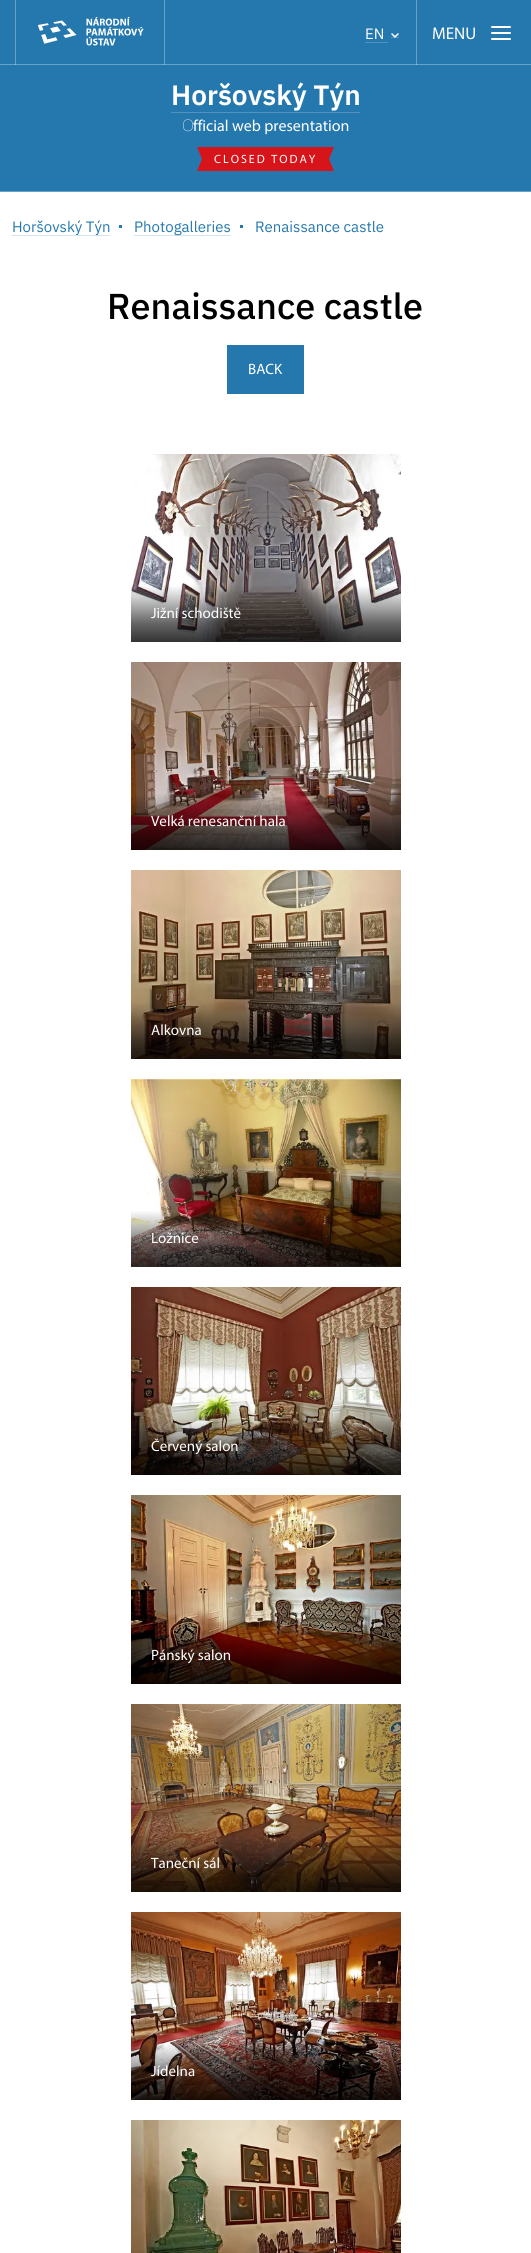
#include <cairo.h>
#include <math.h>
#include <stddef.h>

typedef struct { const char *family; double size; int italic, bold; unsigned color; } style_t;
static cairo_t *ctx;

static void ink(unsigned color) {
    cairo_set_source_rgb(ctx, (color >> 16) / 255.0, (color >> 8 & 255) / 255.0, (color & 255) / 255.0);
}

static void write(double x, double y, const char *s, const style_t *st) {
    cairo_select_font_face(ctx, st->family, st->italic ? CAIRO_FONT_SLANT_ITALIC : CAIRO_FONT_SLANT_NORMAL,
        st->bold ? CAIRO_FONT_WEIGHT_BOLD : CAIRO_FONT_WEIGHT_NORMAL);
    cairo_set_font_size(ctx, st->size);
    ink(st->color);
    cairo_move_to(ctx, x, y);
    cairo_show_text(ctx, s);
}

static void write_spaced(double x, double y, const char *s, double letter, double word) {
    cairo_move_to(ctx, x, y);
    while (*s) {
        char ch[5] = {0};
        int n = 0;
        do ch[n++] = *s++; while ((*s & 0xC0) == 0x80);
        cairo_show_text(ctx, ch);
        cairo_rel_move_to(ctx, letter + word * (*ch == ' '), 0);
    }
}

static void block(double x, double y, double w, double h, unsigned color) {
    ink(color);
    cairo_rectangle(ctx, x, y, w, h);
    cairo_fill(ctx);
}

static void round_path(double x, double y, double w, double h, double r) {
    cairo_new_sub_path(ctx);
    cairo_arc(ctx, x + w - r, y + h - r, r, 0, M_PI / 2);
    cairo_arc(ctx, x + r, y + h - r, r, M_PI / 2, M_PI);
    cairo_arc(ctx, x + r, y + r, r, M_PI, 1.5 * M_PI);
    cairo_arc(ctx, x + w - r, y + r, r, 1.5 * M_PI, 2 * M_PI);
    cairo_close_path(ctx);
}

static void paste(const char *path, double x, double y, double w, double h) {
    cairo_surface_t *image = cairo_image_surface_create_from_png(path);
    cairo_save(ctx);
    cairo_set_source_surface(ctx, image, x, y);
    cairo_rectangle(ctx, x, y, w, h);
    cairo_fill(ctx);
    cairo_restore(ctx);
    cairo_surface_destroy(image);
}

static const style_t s1 = {"IBM Plex Sans", 15, 0, 0, 0xffffff};
static const style_t s2 = {"Myriad", 17, 0, 0, 0xffffff};
static const style_t s3 = {"IBM Plex Sans SemiBold", 28, 0, 0, 0xffffff};
static const style_t s4 = {"Noto Sans Thin", 16, 0, 0, 0xffffff};
static const style_t s5 = {"Myriad", 16, 0, 0, 0xffffff};
static const style_t s6 = {"IBM Plex Sans", 15, 0, 0, 0x2578ae};
static const style_t s7 = {"IBM Plex Sans Medium", 36, 0, 0, 0x000000};
static const style_t s8 = {"Myriad", 15, 0, 0, 0xffffff};

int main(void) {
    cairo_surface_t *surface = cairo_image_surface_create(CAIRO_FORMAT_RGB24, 531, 2253);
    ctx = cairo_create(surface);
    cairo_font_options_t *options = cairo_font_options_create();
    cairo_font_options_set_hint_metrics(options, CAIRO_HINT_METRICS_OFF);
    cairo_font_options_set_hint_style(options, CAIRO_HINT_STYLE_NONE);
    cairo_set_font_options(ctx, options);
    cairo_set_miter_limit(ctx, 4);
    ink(0xffffff);
    cairo_paint(ctx);
    block(0, 0, 531, 191, 0x2578ae);
    block(15, 0, 1, 65, 0x66a1c6);
    block(164, 0, 1, 65, 0x66a1c6);
    block(416, 0, 1, 65, 0x66a1c6);
    block(0, 64, 531, 1, 0x66a1c6);
    block(15, 64, 1, 1, 0x94bdd7);
    block(164, 64, 1, 1, 0x94bdd7);
    block(416, 64, 1, 1, 0x94bdd7);
    paste("pic1.png", 37, 17, 107, 29);
    write(365, 39, "EN", &s1);
    block(365, 42, 23, 1, 0x5193be);
    block(391, 37, 8, 1, 0x5193be);
    cairo_new_path(ctx);
    cairo_move_to(ctx, 398, 34);
    cairo_line_to(ctx, 395, 37);
    cairo_line_to(ctx, 392, 34);
    ink(0xffffff);
    cairo_set_line_width(ctx, 1.5);
    cairo_set_line_cap(ctx, CAIRO_LINE_CAP_ROUND);
    cairo_set_line_join(ctx, CAIRO_LINE_JOIN_ROUND);
    cairo_stroke(ctx);
    write(432, 39, "MENU", &s2);
    round_path(491, 26, 20, 2, 1);
    cairo_fill(ctx);
    round_path(491, 32, 20, 2, 1);
    cairo_fill(ctx);
    round_path(491, 38, 20, 2, 1);
    cairo_fill(ctx);
    block(0, 191, 531, 1, 0x66a1c6);
    write(171, 105, "Horšovský Týn", &s3);
    block(171, 112, 189, 1, 0x5193be);
    write(182, 131, "O", &s4);
    write(193, 131, "fficial web presentation", &s5);
    block(207, 147, 117, 24, 0xd7141a);
    cairo_new_path(ctx);
    cairo_move_to(ctx, 197, 147);
    cairo_line_to(ctx, 207, 147);
    cairo_line_to(ctx, 202, 159);
    cairo_close_path(ctx);
    cairo_fill(ctx);
    block(202, 147, 5, 24, 0xd7141a);
    cairo_new_path(ctx);
    cairo_move_to(ctx, 207, 171);
    cairo_line_to(ctx, 197, 171);
    cairo_line_to(ctx, 202, 159);
    cairo_close_path(ctx);
    cairo_fill(ctx);
    cairo_set_font_size(ctx, 12);
    ink(0xffffff);
    write_spaced(214, 163, "CLOSED TODAY", 2, 0);
    ink(0xd7141a);
    cairo_new_path(ctx);
    cairo_move_to(ctx, 324, 147);
    cairo_line_to(ctx, 334, 147);
    cairo_line_to(ctx, 329, 159);
    cairo_close_path(ctx);
    cairo_move_to(ctx, 334, 171);
    cairo_line_to(ctx, 324, 171);
    cairo_line_to(ctx, 329, 159);
    cairo_close_path(ctx);
    cairo_fill(ctx);
    block(324, 147, 5, 24, 0xd7141a);
    write(12, 232, "Horšovský Týn", &s6);
    block(12, 235, 98, 1, 0xd3e4ef);
    block(119, 225, 3, 3, 0x2578ae);
    block(134, 235, 97, 1, 0xd3e4ef);
    write(134, 232, "Photogalleries", &s6);
    block(240, 225, 3, 3, 0x2578ae);
    write(255, 232, "Renaissance castle", &s6);
    write(107, 319, "Renaissance castle", &s7);
    block(227, 345, 77, 49, 0x2578ae);
    write(248, 374, "BACK", &s8);
    paste("pic2.png", 131, 454, 270, 188);
    write(151, 618, "Jižní schodiště", &s8);
    paste("pic3.png", 131, 662, 270, 188);
    write(151, 826, "Velká renesanční hala", &s8);
    paste("pic4.png", 131, 870, 270, 189);
    write(151, 1035, "Alkovna", &s8);
    paste("pic5.png", 131, 1079, 270, 188);
    write(151, 1243, "Ložnice", &s8);
    paste("pic6.png", 131, 1287, 270, 188);
    write(151, 1451, "Červený salon", &s8);
    paste("pic7.png", 131, 1495, 270, 189);
    write(151, 1660, "Pánský salon", &s8);
    paste("pic8.png", 131, 1704, 270, 188);
    write(151, 1868, "Taneční sál", &s8);
    paste("pic9.png", 131, 1912, 270, 188);
    write(151, 2076, "Jídelna", &s8);
    paste("pic10.png", 131, 2120, 270, 133);
    cairo_surface_write_to_png(surface, "screenshot.png");
    cairo_font_options_destroy(options);
    cairo_destroy(ctx);
    cairo_surface_destroy(surface);
    return 0;
}
